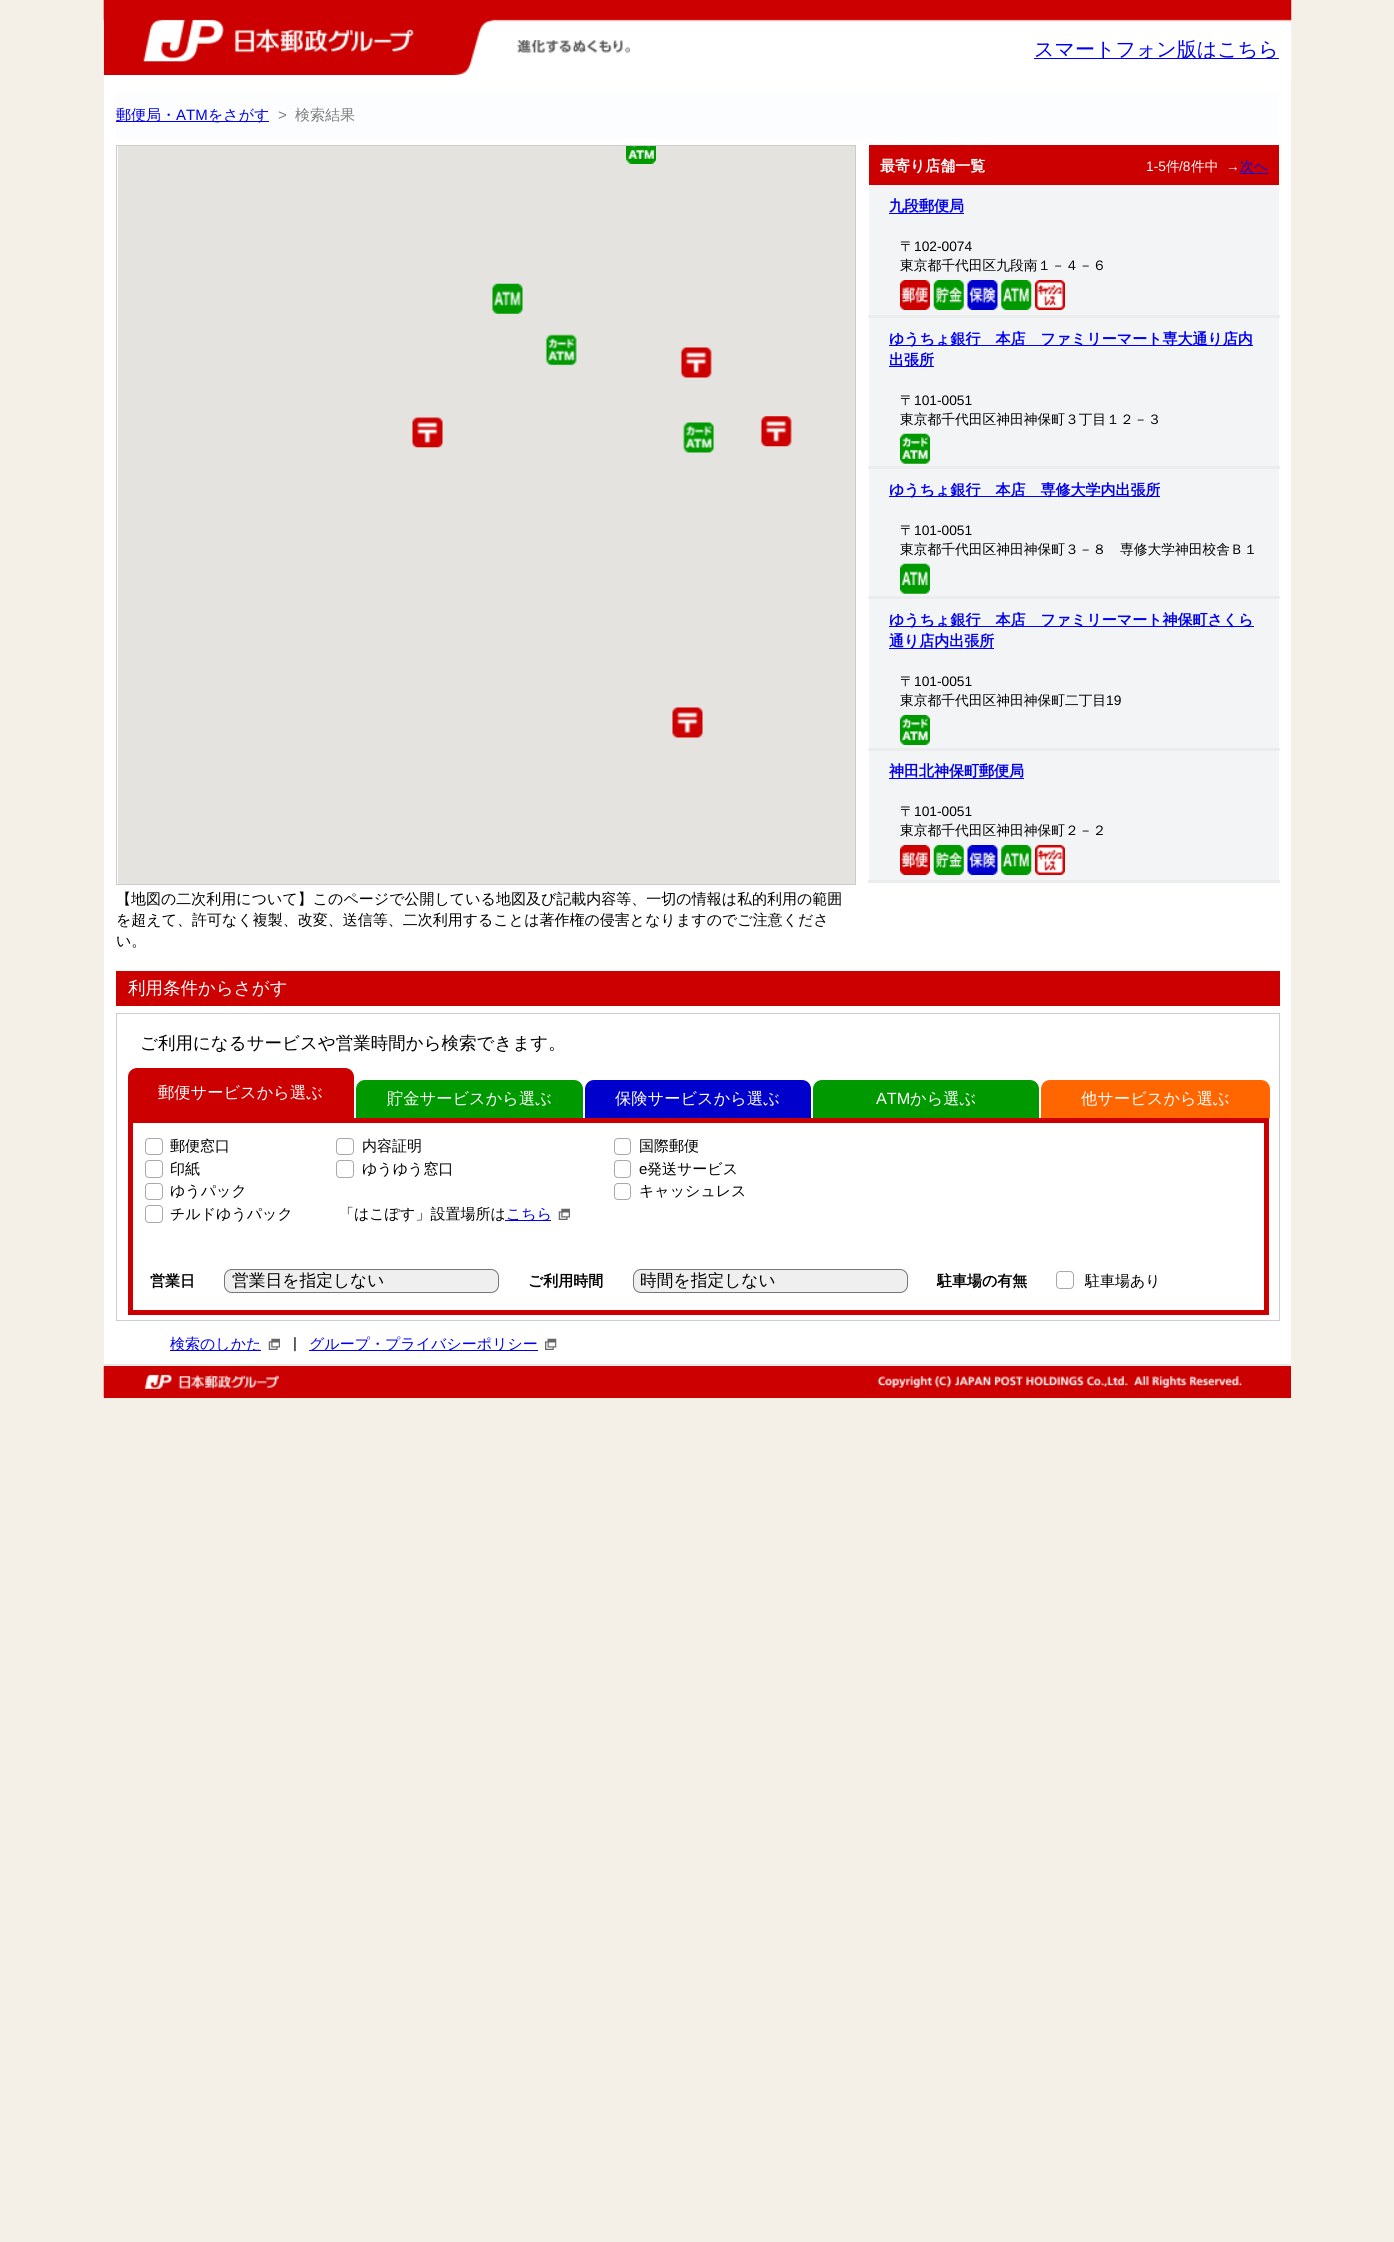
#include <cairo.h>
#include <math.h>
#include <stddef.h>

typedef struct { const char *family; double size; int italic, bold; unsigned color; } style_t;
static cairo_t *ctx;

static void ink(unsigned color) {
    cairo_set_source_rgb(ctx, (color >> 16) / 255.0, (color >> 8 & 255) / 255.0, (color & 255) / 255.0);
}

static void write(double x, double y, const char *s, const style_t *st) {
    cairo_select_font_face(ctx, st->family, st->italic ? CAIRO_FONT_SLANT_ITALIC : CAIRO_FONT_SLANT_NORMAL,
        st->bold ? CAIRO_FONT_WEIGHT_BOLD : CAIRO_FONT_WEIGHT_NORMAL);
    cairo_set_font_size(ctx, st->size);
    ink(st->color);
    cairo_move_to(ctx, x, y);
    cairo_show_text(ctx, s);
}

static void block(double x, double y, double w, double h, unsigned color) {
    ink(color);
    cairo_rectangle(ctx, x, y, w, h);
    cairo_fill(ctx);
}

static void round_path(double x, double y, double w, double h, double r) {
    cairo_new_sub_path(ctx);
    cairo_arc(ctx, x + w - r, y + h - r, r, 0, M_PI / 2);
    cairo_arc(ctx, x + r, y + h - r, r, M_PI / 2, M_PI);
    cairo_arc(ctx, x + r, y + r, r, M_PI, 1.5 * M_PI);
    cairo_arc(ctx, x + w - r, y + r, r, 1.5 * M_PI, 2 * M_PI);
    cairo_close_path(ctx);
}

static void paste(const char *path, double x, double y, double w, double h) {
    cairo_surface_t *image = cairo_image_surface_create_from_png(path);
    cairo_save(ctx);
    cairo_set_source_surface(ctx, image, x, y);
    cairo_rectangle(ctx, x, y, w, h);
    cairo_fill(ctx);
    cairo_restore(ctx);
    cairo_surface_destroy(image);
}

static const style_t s1 = {"WenQuanYi Zen Hei Medium", 20, 0, 0, 0x0000ee};
static const style_t s2 = {"WenQuanYi Zen Hei Medium", 15, 0, 0, 0x0000ee};
static const style_t s3 = {"Liberation Sans", 15, 0, 0, 0x0000ee};
static const style_t s4 = {"Liberation Sans", 15, 0, 0, 0x7d7d7d};
static const style_t s5 = {"WenQuanYi Zen Hei Medium", 15, 0, 0, 0x7d7d7d};
static const style_t s6 = {"WenQuanYi Zen Hei", 15, 0, 1, 0xffffff};
static const style_t s7 = {"Liberation Sans", 13.75, 0, 0, 0xffffff};
static const style_t s8 = {"WenQuanYi Zen Hei Medium", 13.75, 0, 0, 0xffffff};
static const style_t s9 = {"WenQuanYi Zen Hei Medium", 13.75, 0, 0, 0x0000ee};
static const style_t s10 = {"WenQuanYi Zen Hei", 15, 0, 1, 0x0000ee};
static const style_t s11 = {"WenQuanYi Zen Hei Medium", 13.75, 0, 0, 0x000000};
static const style_t s12 = {"Liberation Sans", 13.75, 0, 0, 0x000000};
static const style_t s13 = {"WenQuanYi Zen Hei Medium", 15, 0, 0, 0x000000};
static const style_t s14 = {"WenQuanYi Zen Hei Medium", 17.5, 0, 0, 0xffffff};
static const style_t s15 = {"WenQuanYi Zen Hei Medium", 17.5, 0, 0, 0x000000};
static const style_t s16 = {"WenQuanYi Zen Hei Medium", 16.25, 0, 0, 0xffffff};
static const style_t s17 = {"Liberation Sans", 15, 0, 0, 0x000000};
static const style_t s18 = {"WenQuanYi Zen Hei", 15, 0, 1, 0x000000};
static const style_t s19 = {"WenQuanYi Zen Hei Medium", 16.75, 0, 0, 0x000000};
static const style_t s20 = {"Liberation Sans", 16.25, 0, 0, 0xffffff};

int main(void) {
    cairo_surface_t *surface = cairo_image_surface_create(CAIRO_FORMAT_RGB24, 1394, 2242);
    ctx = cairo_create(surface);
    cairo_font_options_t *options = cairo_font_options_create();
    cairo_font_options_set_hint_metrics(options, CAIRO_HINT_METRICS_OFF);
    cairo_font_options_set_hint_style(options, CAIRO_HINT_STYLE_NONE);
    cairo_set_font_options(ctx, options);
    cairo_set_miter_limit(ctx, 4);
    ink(0xf4f0e7);
    cairo_paint(ctx);
    block(104, 75, 1187, 1289, 0xffffff);
    paste("pic1.png", 103, 0, 1189, 75);
    paste("pic2.png", 103, 0, 390, 75);
    paste("pic3.png", 517, 40, 113, 13);
    block(1034, 58, 245, 1, 0x0000ee);
    write(1034, 56, "スマートフォン版はこちら", &s1);
    block(116, 93, 1163, 46, 0xfcfdfe);
    block(116, 121, 153, 1, 0x0000ee);
    write(116, 120, "郵便局・", &s2);
    write(176, 120, "ATM", &s3);
    write(208, 120, "をさがす", &s2);
    write(278, 120, ">", &s4);
    write(295, 120, "検索結果", &s5);
    block(869, 145, 410, 40, 0xcc0000);
    write(880, 171, "最寄り店舗一覧", &s6);
    write(1146, 171, "1-5", &s7);
    write(1166, 171, "件", &s8);
    write(1179, 171, "/8", &s7);
    write(1191, 171, "件中", &s8);
    write(1226, 171, "→", &s7);
    write(1240, 171, "次へ", &s9);
    block(1240, 173, 28, 1, 0x0000ee);
    block(869, 185, 410, 695, 0xf2f4f5);
    block(868, 315, 412, 3, 0xeaeced);
    write(889, 211, "九段郵便局", &s10);
    block(889, 213, 75, 1, 0x0000ee);
    write(900, 251, "〒", &s11);
    write(914, 251, "102-0074", &s12);
    write(900, 270, "東京都千代田区九段南１－４－６", &s11);
    paste("pic4.png", 900, 280, 30, 30);
    paste("pic5.png", 933, 280, 31, 30);
    paste("pic6.png", 967, 280, 31, 30);
    paste("pic7.png", 1001, 280, 31, 30);
    paste("pic8.png", 1035, 280, 30, 30);
    block(868, 466, 412, 3, 0xeaeced);
    block(889, 345, 364, 1, 0x0000ee);
    write(889, 344, "ゆうちょ銀行　本店　ファミリーマート専大通り店内", &s10);
    block(889, 366, 45, 1, 0x0000ee);
    write(889, 365, "出張所", &s10);
    write(900, 405, "〒", &s11);
    write(914, 405, "101-0051", &s12);
    write(900, 424, "東京都千代田区神田神保町３丁目１２－３", &s11);
    paste("pic9.png", 900, 433, 30, 31);
    block(868, 596, 412, 3, 0xeaeced);
    block(889, 496, 271, 1, 0x0000ee);
    write(889, 495, "ゆうちょ銀行　本店　専修大学内出張所", &s10);
    write(900, 535, "〒", &s11);
    write(914, 535, "101-0051", &s12);
    write(900, 554, "東京都千代田区神田神保町３－８　専修大学神田校舎Ｂ１", &s11);
    paste("pic10.png", 900, 563, 30, 31);
    block(868, 748, 412, 3, 0xeaeced);
    block(889, 626, 365, 1, 0x0000ee);
    write(889, 625, "ゆうちょ銀行　本店　ファミリーマート神保町さくら", &s10);
    block(889, 648, 105, 1, 0x0000ee);
    write(889, 646, "通り店内出張所", &s10);
    write(900, 686, "〒", &s11);
    write(914, 686, "101-0051", &s12);
    write(900, 705, "東京都千代田区神田神保町二丁目", &s11);
    write(1106, 705, "19", &s12);
    paste("pic11.png", 900, 715, 30, 30);
    block(868, 880, 412, 3, 0xeaeced);
    write(889, 776, "神田北神保町郵便局", &s10);
    block(889, 778, 135, 1, 0x0000ee);
    write(900, 816, "〒", &s11);
    write(914, 816, "101-0051", &s12);
    write(900, 835, "東京都千代田区神田神保町２－２", &s11);
    paste("pic12.png", 900, 845, 30, 30);
    paste("pic13.png", 933, 845, 31, 30);
    paste("pic14.png", 967, 845, 31, 30);
    paste("pic15.png", 1001, 845, 31, 30);
    paste("pic16.png", 1035, 845, 30, 30);
    cairo_rectangle(ctx, 116.5, 145.5, 739, 739);
    ink(0xcccccc);
    cairo_set_line_width(ctx, 1);
    cairo_stroke(ctx);
    block(118, 146, 737, 738, 0xe5e3df);
    paste("pic17.png", 626, 146, 30, 18);
    paste("pic18.png", 492, 283, 31, 31);
    paste("pic19.png", 545, 334, 32, 32);
    paste("pic20.png", 680, 347, 32, 31);
    paste("pic21.png", 412, 417, 31, 31);
    paste("pic22.png", 683, 422, 32, 31);
    paste("pic23.png", 760, 416, 32, 31);
    paste("pic24.png", 672, 707, 31, 31);
    write(116, 904, "【地図の二次利用について】このページで公開している地図及び記載内容等、一切の情報は私的利用の範囲", &s13);
    write(116, 925, "を超えて、許可なく複製、改変、送信等、二次利用することは著作権の侵害となりますのでご注意くださ", &s13);
    write(116, 946, "い。", &s13);
    block(116, 971, 1164, 35, 0xcc0000);
    write(128, 994, "利用条件からさがす", &s14);
    cairo_rectangle(ctx, 116.5, 1013.5, 1163, 307);
    ink(0xccccd7);
    cairo_stroke(ctx);
    write(140, 1049, "ご利用になるサービスや営業時間から検索できます。", &s15);
    ink(0xcc0000);
    cairo_new_path(ctx);
    cairo_move_to(ctx, 137, 1068);
    cairo_line_to(ctx, 345, 1068);
    cairo_curve_to(ctx, 350, 1068, 354, 1072, 354, 1077);
    cairo_line_to(ctx, 354, 1118);
    cairo_line_to(ctx, 128, 1118);
    cairo_line_to(ctx, 128, 1077);
    cairo_curve_to(ctx, 128, 1072, 132, 1068, 137, 1068);
    cairo_close_path(ctx);
    cairo_fill(ctx);
    write(158, 1098, "郵便サービスから選ぶ", &s16);
    cairo_rectangle(ctx, 130.5, 1120.5, 1136, 192);
    ink(0xcc0000);
    cairo_set_line_width(ctx, 5);
    cairo_stroke(ctx);
    round_path(145.5, 1138.5, 17, 16, 3.5);
    ink(0xa9a9a9);
    cairo_set_line_width(ctx, 1);
    cairo_stroke(ctx);
    write(170, 1151, "郵便窓口", &s13);
    round_path(145.5, 1160.5, 17, 17, 3.5);
    ink(0xa9a9a9);
    cairo_stroke(ctx);
    write(170, 1174, "印紙", &s13);
    round_path(145.5, 1183.5, 17, 16, 3.5);
    ink(0xa9a9a9);
    cairo_stroke(ctx);
    write(170, 1196, "ゆうパック", &s13);
    round_path(145.5, 1205.5, 17, 17, 3.5);
    ink(0xa9a9a9);
    cairo_stroke(ctx);
    write(170, 1219, "チルドゆうパック", &s13);
    round_path(336.5, 1138.5, 17, 16, 3.5);
    ink(0xa9a9a9);
    cairo_stroke(ctx);
    write(362, 1151, "内容証明", &s13);
    round_path(336.5, 1160.5, 17, 17, 3.5);
    ink(0xa9a9a9);
    cairo_stroke(ctx);
    write(362, 1174, "ゆうゆう窓口", &s13);
    write(339, 1219, "「はこぽす」設置場所は", &s13);
    block(505, 1220, 46, 1, 0x0000ee);
    write(506, 1219, "こちら", &s2);
    paste("pic25.png", 558, 1208, 12, 12);
    round_path(614.5, 1138.5, 16, 16, 3.5);
    ink(0xa9a9a9);
    cairo_stroke(ctx);
    write(639, 1151, "国際郵便", &s13);
    round_path(614.5, 1160.5, 16, 17, 3.5);
    ink(0xa9a9a9);
    cairo_stroke(ctx);
    write(639, 1174, "e", &s17);
    write(647, 1174, "発送サービス", &s13);
    round_path(614.5, 1183.5, 16, 16, 3.5);
    ink(0xa9a9a9);
    cairo_stroke(ctx);
    write(639, 1196, "キャッシュレス", &s13);
    write(150, 1286, "営業日", &s18);
    ink(0xefefef);
    round_path(224.5, 1269.5, 274, 23, 7.5);
    cairo_fill_preserve(ctx);
    ink(0x767676);
    cairo_stroke(ctx);
    write(232, 1286, "営業日を指定しない", &s19);
    write(528, 1286, "ご利用時間", &s18);
    ink(0xefefef);
    round_path(633.5, 1269.5, 274, 23, 7.5);
    cairo_fill_preserve(ctx);
    ink(0x767676);
    cairo_stroke(ctx);
    write(640, 1286, "時間を指定しない", &s19);
    write(937, 1286, "駐車場の有無", &s18);
    round_path(1056.5, 1271.5, 17, 17, 3.5);
    ink(0xa9a9a9);
    cairo_stroke(ctx);
    write(1085, 1286, "駐車場あり", &s13);
    ink(0x009900);
    cairo_new_path(ctx);
    cairo_move_to(ctx, 365, 1080);
    cairo_line_to(ctx, 574, 1080);
    cairo_curve_to(ctx, 579, 1080, 583, 1084, 583, 1089);
    cairo_line_to(ctx, 583, 1118);
    cairo_line_to(ctx, 356, 1118);
    cairo_line_to(ctx, 356, 1089);
    cairo_curve_to(ctx, 356, 1084, 360, 1080, 365, 1080);
    cairo_close_path(ctx);
    cairo_fill(ctx);
    write(387, 1104, "貯金サービスから選ぶ", &s16);
    ink(0x0000cc);
    cairo_new_path(ctx);
    cairo_move_to(ctx, 594, 1080);
    cairo_line_to(ctx, 802, 1080);
    cairo_curve_to(ctx, 807, 1080, 811, 1084, 811, 1089);
    cairo_line_to(ctx, 811, 1118);
    cairo_line_to(ctx, 585, 1118);
    cairo_line_to(ctx, 585, 1089);
    cairo_curve_to(ctx, 585, 1084, 589, 1080, 594, 1080);
    cairo_close_path(ctx);
    cairo_fill(ctx);
    write(615, 1104, "保険サービスから選ぶ", &s16);
    ink(0x009900);
    cairo_new_path(ctx);
    cairo_move_to(ctx, 822, 1080);
    cairo_line_to(ctx, 1030, 1080);
    cairo_curve_to(ctx, 1035, 1080, 1039, 1084, 1039, 1089);
    cairo_line_to(ctx, 1039, 1118);
    cairo_line_to(ctx, 813, 1118);
    cairo_line_to(ctx, 813, 1089);
    cairo_curve_to(ctx, 813, 1084, 817, 1080, 822, 1080);
    cairo_close_path(ctx);
    cairo_fill(ctx);
    write(876, 1104, "ATM", &s20);
    write(910, 1104, "から選ぶ", &s16);
    ink(0xff6600);
    cairo_new_path(ctx);
    cairo_move_to(ctx, 1050, 1080);
    cairo_line_to(ctx, 1261, 1080);
    cairo_curve_to(ctx, 1266, 1080, 1270, 1084, 1270, 1089);
    cairo_line_to(ctx, 1270, 1118);
    cairo_line_to(ctx, 1041, 1118);
    cairo_line_to(ctx, 1041, 1089);
    cairo_curve_to(ctx, 1041, 1084, 1045, 1080, 1050, 1080);
    cairo_close_path(ctx);
    cairo_fill(ctx);
    write(1081, 1104, "他サービスから選ぶ", &s16);
    block(170, 1350, 91, 1, 0x0000ee);
    write(170, 1349, "検索のしかた", &s2);
    paste("pic26.png", 268, 1338, 12, 12);
    write(293, 1348, "|", &s17);
    block(309, 1350, 229, 1, 0x0000ee);
    write(309, 1349, "グループ・プライバシーポリシー", &s2);
    paste("pic27.png", 545, 1338, 12, 12);
    block(104, 1364, 1187, 1, 0xe5e5e5);
    block(104, 1366, 1187, 32, 0xcc0000);
    paste("pic28.png", 103, 1366, 176, 32);
    paste("pic29.png", 877, 1376, 365, 12);
    cairo_surface_write_to_png(surface, "screenshot.png");
    cairo_font_options_destroy(options);
    cairo_destroy(ctx);
    cairo_surface_destroy(surface);
    return 0;
}
